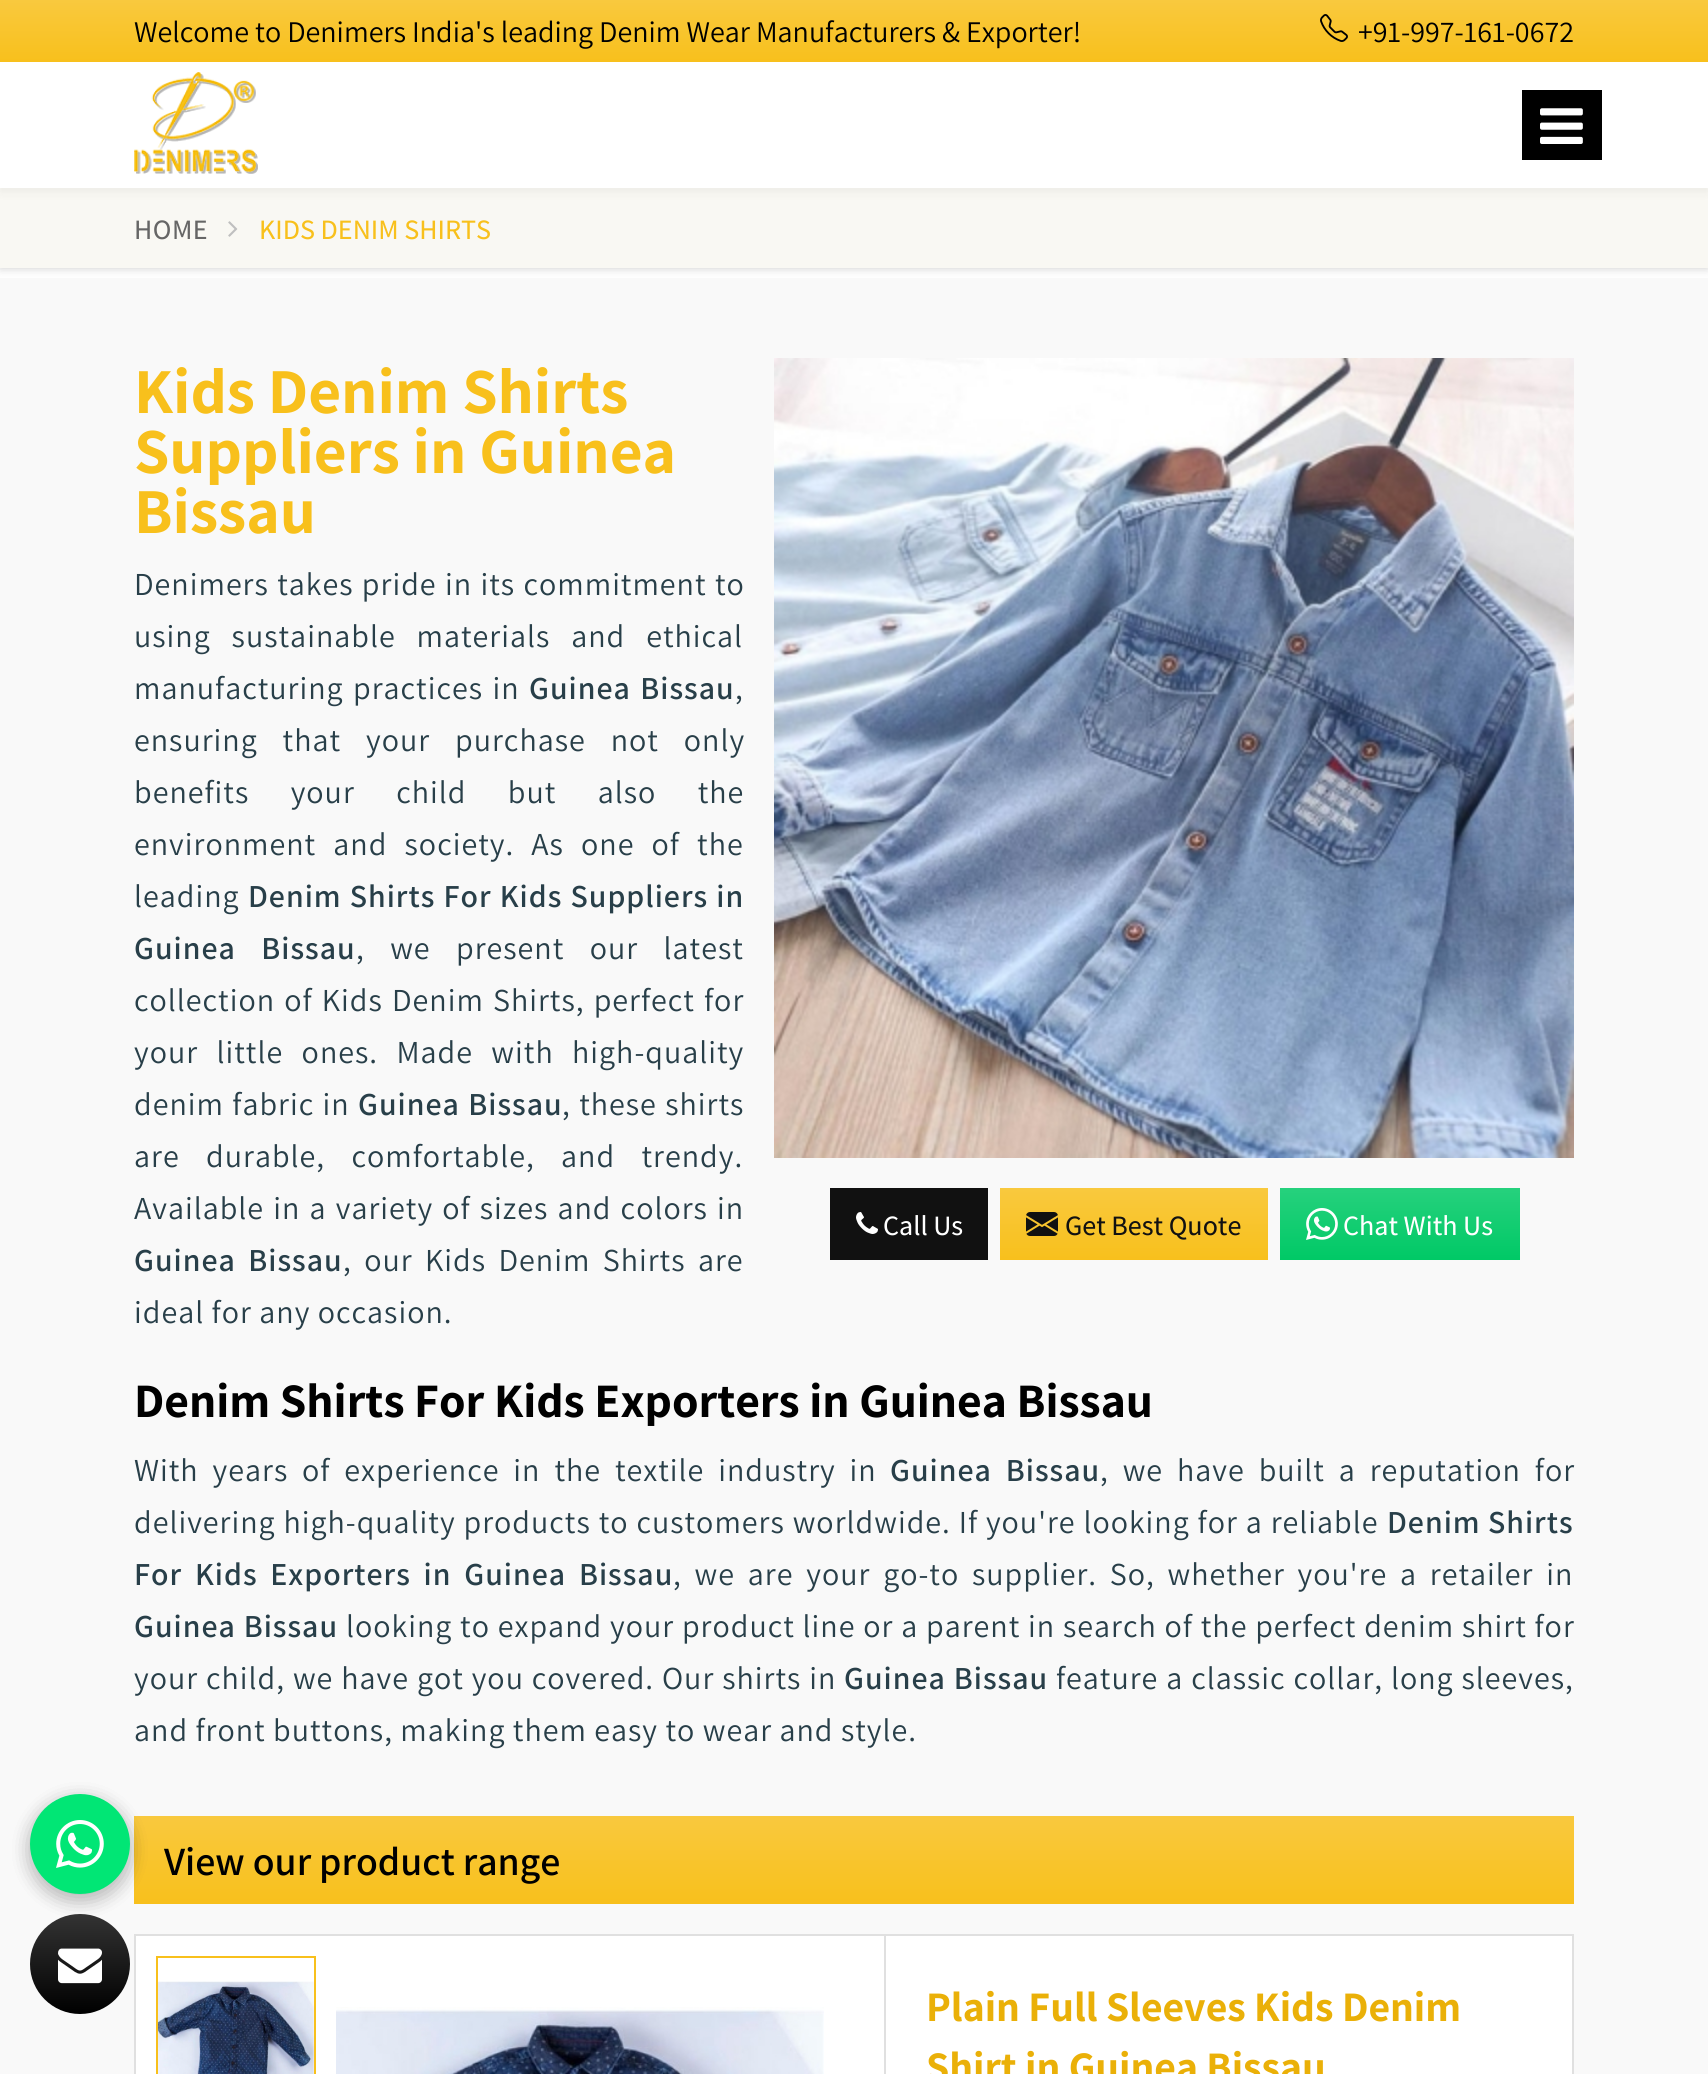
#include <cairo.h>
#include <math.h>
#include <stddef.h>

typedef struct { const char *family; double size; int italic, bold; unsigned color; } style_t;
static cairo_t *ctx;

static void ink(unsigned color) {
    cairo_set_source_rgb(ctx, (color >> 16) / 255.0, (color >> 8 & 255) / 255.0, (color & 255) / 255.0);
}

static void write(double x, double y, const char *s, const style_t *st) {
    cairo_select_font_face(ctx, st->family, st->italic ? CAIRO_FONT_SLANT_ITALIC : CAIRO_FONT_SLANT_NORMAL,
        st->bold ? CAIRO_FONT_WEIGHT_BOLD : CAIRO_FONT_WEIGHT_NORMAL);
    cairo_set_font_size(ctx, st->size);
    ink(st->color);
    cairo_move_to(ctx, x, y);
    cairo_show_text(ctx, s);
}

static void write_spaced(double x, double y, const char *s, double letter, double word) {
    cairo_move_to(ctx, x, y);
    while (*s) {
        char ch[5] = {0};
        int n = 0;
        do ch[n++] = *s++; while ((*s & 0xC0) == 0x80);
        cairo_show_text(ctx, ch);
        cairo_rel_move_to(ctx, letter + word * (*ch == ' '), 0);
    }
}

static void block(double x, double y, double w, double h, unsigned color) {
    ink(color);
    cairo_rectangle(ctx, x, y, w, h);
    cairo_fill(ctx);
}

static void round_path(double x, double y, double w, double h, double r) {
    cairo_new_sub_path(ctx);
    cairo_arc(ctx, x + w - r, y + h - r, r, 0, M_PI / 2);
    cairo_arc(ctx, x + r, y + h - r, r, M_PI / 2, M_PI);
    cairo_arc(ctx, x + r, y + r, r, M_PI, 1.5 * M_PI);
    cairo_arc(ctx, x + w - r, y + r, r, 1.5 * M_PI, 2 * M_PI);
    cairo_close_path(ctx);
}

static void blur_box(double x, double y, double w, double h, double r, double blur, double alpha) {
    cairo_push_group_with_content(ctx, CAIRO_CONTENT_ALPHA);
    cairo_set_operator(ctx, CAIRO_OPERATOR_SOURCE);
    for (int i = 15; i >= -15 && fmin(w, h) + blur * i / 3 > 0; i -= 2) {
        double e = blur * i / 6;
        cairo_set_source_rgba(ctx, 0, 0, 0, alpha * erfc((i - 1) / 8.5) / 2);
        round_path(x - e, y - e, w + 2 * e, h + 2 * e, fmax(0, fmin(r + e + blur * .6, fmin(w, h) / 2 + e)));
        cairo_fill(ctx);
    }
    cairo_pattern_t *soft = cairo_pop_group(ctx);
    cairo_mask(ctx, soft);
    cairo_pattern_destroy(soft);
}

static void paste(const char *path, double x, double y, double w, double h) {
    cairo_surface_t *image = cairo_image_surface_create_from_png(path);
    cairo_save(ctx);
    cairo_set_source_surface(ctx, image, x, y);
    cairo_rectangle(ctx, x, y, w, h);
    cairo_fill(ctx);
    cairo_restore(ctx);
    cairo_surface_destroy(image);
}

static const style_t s1 = {"Assistant", 30, 0, 0, 0x000000};
static const style_t s2 = {"Assistant Medium", 28, 0, 0, 0xf8c01c};
static const style_t s3 = {"Assistant", 64, 0, 1, 0xf8c01c};
static const style_t s4 = {"Assistant Medium", 28, 0, 0, 0xffffff};
static const style_t s5 = {"Assistant Medium", 28, 0, 0, 0x111111};
static const style_t s6 = {"Assistant", 48, 0, 1, 0x000000};
static const style_t s7 = {"Assistant SemiBold", 40, 0, 0, 0x000000};
static const style_t s8 = {"Assistant", 42, 0, 1, 0xeab008};

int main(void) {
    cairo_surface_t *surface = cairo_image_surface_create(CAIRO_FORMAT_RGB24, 1708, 2074);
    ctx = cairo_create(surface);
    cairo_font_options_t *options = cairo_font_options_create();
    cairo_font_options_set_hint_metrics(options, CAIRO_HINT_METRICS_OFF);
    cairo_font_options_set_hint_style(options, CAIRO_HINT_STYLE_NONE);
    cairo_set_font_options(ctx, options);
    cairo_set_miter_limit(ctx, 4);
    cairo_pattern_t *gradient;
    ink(0xffffff);
    cairo_paint(ctx);
    ink(0x000000);
    blur_box(0, 188, 1708, 80, 0, 5, 0.2);
    block(0, 278, 1708, 1796, 0xf9f9f9);
    gradient = cairo_pattern_create_linear(854, 1816, 854, 1904);
    cairo_pattern_add_color_stop_rgba(gradient, 0, 0.976, 0.788, 0.243, 1);
    cairo_pattern_add_color_stop_rgba(gradient, 1, 0.973, 0.753, 0.11, 1);
    cairo_set_source(ctx, gradient);
    cairo_pattern_destroy(gradient);
    cairo_rectangle(ctx, 134, 1816, 1440, 88);
    cairo_fill(ctx);
    ink(0x000000);
    blur_box(30, 1800, 100, 100, 50, 10, 0.16);
    blur_box(30, 1800, 100, 100, 50, 10, 0.16);
    ink(0x01e675);
    cairo_arc(ctx, 80, 1844, 50, 0, 2 * M_PI);
    cairo_fill(ctx);
    paste("pic1.png", 56, 1820, 48, 48);
    block(0, 188, 1708, 80, 0xf9f8f3);
    ink(0x000000);
    blur_box(0, 4, 1708, 188, 0, 5, 0.05);
    block(0, 62, 1708, 126, 0xffffff);
    gradient = cairo_pattern_create_linear(854, 0, 854, 62);
    cairo_pattern_add_color_stop_rgba(gradient, 0, 0.976, 0.788, 0.243, 1);
    cairo_pattern_add_color_stop_rgba(gradient, 1, 0.973, 0.753, 0.11, 1);
    cairo_set_source(ctx, gradient);
    cairo_pattern_destroy(gradient);
    cairo_rectangle(ctx, 0, 0, 1708, 62);
    cairo_fill(ctx);
    write(134, 42, "Welcome to Denimers India's leading Denim Wear Manufacturers & Exporter!", &s1);
    paste("pic2.png", 1320, 14, 28, 28);
    write(1358, 42, "+91-997-161-0672", &s1);
    paste("pic3.png", 134, 72, 124, 102);
    block(1522, 90, 80, 70, 0x000000);
    paste("pic4.png", 1540, 108, 43, 36);
    cairo_select_font_face(ctx, "Assistant Medium", CAIRO_FONT_SLANT_NORMAL, CAIRO_FONT_WEIGHT_NORMAL);
    cairo_set_font_size(ctx, 28);
    ink(0x666666);
    write_spaced(134, 239, "HOME", 0.5, 0);
    paste("pic5.png", 228, 221, 10, 16);
    write(259, 239, "KIDS DENIM SHIRTS", &s2);
    write(134, 413, "Kids Denim Shirts", &s3);
    write(134, 473, "Suppliers in Guinea", &s3);
    write(134, 533, "Bissau", &s3);
    cairo_select_font_face(ctx, "Assistant", CAIRO_FONT_SLANT_NORMAL, CAIRO_FONT_WEIGHT_NORMAL);
    cairo_set_font_size(ctx, 32);
    ink(0x283f49);
    write_spaced(134, 595, "Denimers takes pride in its commitment to", 1, 1);
    write_spaced(134, 647, "using sustainable materials and ethical", 1, 13.5);
    write_spaced(134, 699, "manufacturing practices in", 1, 2);
    cairo_select_font_face(ctx, "Assistant SemiBold", CAIRO_FONT_SLANT_NORMAL, CAIRO_FONT_WEIGHT_NORMAL);
    write_spaced(529, 699, "Guinea Bissau", 1, 2);
    cairo_select_font_face(ctx, "Assistant", CAIRO_FONT_SLANT_NORMAL, CAIRO_FONT_WEIGHT_NORMAL);
    write_spaced(735, 699, ",", 1, 0);
    write_spaced(134, 751, "ensuring that your purchase not only", 1, 17.5);
    write_spaced(134, 803, "benefits your child but also the", 1, 34);
    write_spaced(134, 855, "environment and society. As one of the", 1, 9.75);
    write_spaced(134, 907, "leading", 1, 0);
    cairo_select_font_face(ctx, "Assistant SemiBold", CAIRO_FONT_SLANT_NORMAL, CAIRO_FONT_WEIGHT_NORMAL);
    write_spaced(248, 907, "Denim Shirts For Kids Suppliers in", 1, 0.75);
    write_spaced(134, 959, "Guinea Bissau", 1, 18);
    cairo_select_font_face(ctx, "Assistant", CAIRO_FONT_SLANT_NORMAL, CAIRO_FONT_WEIGHT_NORMAL);
    write_spaced(356, 959, ", we present our latest", 1, 18);
    write_spaced(134, 1011, "collection of Kids Denim Shirts, perfect for", 1, 1.75);
    write_spaced(134, 1063, "your little ones. Made with high-quality", 1, 11);
    write_spaced(134, 1115, "denim fabric in", 1, 1);
    cairo_select_font_face(ctx, "Assistant SemiBold", CAIRO_FONT_SLANT_NORMAL, CAIRO_FONT_WEIGHT_NORMAL);
    write_spaced(358, 1115, "Guinea Bissau", 1, 1);
    cairo_select_font_face(ctx, "Assistant", CAIRO_FONT_SLANT_NORMAL, CAIRO_FONT_WEIGHT_NORMAL);
    write_spaced(562, 1115, ", these shirts", 1, 1);
    write_spaced(134, 1167, "are durable, comfortable, and trendy.", 1, 19);
    write_spaced(134, 1219, "Available in a variety of sizes and colors in", 1, 1.75);
    cairo_select_font_face(ctx, "Assistant SemiBold", CAIRO_FONT_SLANT_NORMAL, CAIRO_FONT_WEIGHT_NORMAL);
    write_spaced(134, 1271, "Guinea Bissau", 1, 5);
    cairo_select_font_face(ctx, "Assistant", CAIRO_FONT_SLANT_NORMAL, CAIRO_FONT_WEIGHT_NORMAL);
    write_spaced(343, 1271, ", our Kids Denim Shirts are", 1, 5);
    write_spaced(134, 1323, "ideal for any occasion.", 1, 0);
    paste("pic6.png", 774, 358, 800, 800);
    block(830, 1188, 158, 72, 0x111111);
    paste("pic7.png", 856, 1212, 22, 22);
    write(883, 1235, "Call Us", &s4);
    gradient = cairo_pattern_create_linear(1134, 1188, 1134, 1260);
    cairo_pattern_add_color_stop_rgba(gradient, 0, 0.976, 0.788, 0.243, 1);
    cairo_pattern_add_color_stop_rgba(gradient, 1, 0.973, 0.753, 0.11, 1);
    cairo_set_source(ctx, gradient);
    cairo_pattern_destroy(gradient);
    cairo_rectangle(ctx, 1000, 1188, 268, 72);
    cairo_fill(ctx);
    paste("pic8.png", 1026, 1212, 32, 24);
    write(1065, 1235, "Get Best Quote", &s5);
    gradient = cairo_pattern_create_linear(1400, 1188, 1400, 1260);
    cairo_pattern_add_color_stop_rgba(gradient, 0, 0.149, 0.82, 0.49, 1);
    cairo_pattern_add_color_stop_rgba(gradient, 1, 0, 0.788, 0.4, 1);
    cairo_set_source(ctx, gradient);
    cairo_pattern_destroy(gradient);
    cairo_rectangle(ctx, 1280, 1188, 240, 72);
    cairo_fill(ctx);
    paste("pic9.png", 1306, 1208, 32, 32);
    write(1343, 1235, "Chat With Us", &s4);
    write(134, 1417, "Denim Shirts For Kids Exporters in Guinea Bissau", &s6);
    cairo_select_font_face(ctx, "Assistant", CAIRO_FONT_SLANT_NORMAL, CAIRO_FONT_WEIGHT_NORMAL);
    cairo_set_font_size(ctx, 32);
    ink(0x283f49);
    write_spaced(134, 1481, "With years of experience in the textile industry in", 1, 6.5);
    cairo_select_font_face(ctx, "Assistant SemiBold", CAIRO_FONT_SLANT_NORMAL, CAIRO_FONT_WEIGHT_NORMAL);
    write_spaced(890, 1481, "Guinea Bissau", 1, 6.5);
    cairo_select_font_face(ctx, "Assistant", CAIRO_FONT_SLANT_NORMAL, CAIRO_FONT_WEIGHT_NORMAL);
    write_spaced(1100, 1481, ", we have built a reputation for", 1, 6.5);
    write_spaced(134, 1533, "delivering high-quality products to customers worldwide. If you're looking for a reliable", 1, 0.5);
    cairo_select_font_face(ctx, "Assistant SemiBold", CAIRO_FONT_SLANT_NORMAL, CAIRO_FONT_WEIGHT_NORMAL);
    write_spaced(1387, 1533, "Denim Shirts", 1, 0);
    write_spaced(134, 1585, "For Kids Exporters in Guinea Bissau", 1, 5.4);
    cairo_select_font_face(ctx, "Assistant", CAIRO_FONT_SLANT_NORMAL, CAIRO_FONT_WEIGHT_NORMAL);
    write_spaced(673, 1585, ", we are your go-to supplier. So, whether you're a retailer in", 1, 5.4);
    cairo_select_font_face(ctx, "Assistant SemiBold", CAIRO_FONT_SLANT_NORMAL, CAIRO_FONT_WEIGHT_NORMAL);
    write_spaced(134, 1637, "Guinea Bissau", 1, 0.4);
    cairo_select_font_face(ctx, "Assistant", CAIRO_FONT_SLANT_NORMAL, CAIRO_FONT_WEIGHT_NORMAL);
    write_spaced(346, 1637, "looking to expand your product line or a parent in search of the perfect denim shirt for", 1, 0.4);
    write_spaced(134, 1689, "your child, we have got you covered. Our shirts in", 1, 0.5);
    cairo_select_font_face(ctx, "Assistant SemiBold", CAIRO_FONT_SLANT_NORMAL, CAIRO_FONT_WEIGHT_NORMAL);
    write_spaced(844, 1689, "Guinea Bissau", 1, 0.5);
    cairo_select_font_face(ctx, "Assistant", CAIRO_FONT_SLANT_NORMAL, CAIRO_FONT_WEIGHT_NORMAL);
    write_spaced(1056, 1689, "feature a classic collar, long sleeves,", 1, 0.5);
    write_spaced(134, 1741, "and front buttons, making them easy to wear and style.", 1, 0);
    write(164, 1875, "View our product range", &s7);
    ink(0xffffff);
    cairo_rectangle(ctx, 135, 1935, 1438, 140);
    cairo_fill_preserve(ctx);
    ink(0xe0e0e0);
    cairo_stroke(ctx);
    cairo_rectangle(ctx, 157, 1957, 158, 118);
    ink(0xf8c01c);
    cairo_stroke(ctx);
    paste("pic10.png", 158, 1981, 156, 93);
    paste("pic11.png", 336, 2007, 488, 67);
    block(884, 1936, 2, 138, 0xe0e0e0);
    write(926, 2021, "Plain Full Sleeves Kids Denim", &s8);
    write(926, 2081, "Shirt in Guinea Bissau", &s8);
    gradient = cairo_pattern_create_linear(80, 1914, 80, 2014);
    cairo_pattern_add_color_stop_rgba(gradient, 0, 0.2, 0.2, 0.2, 1);
    cairo_pattern_add_color_stop_rgba(gradient, 1, 0, 0, 0, 1);
    cairo_set_source(ctx, gradient);
    cairo_pattern_destroy(gradient);
    cairo_new_path(ctx);
    cairo_arc(ctx, 80, 1964, 50, 0, 2 * M_PI);
    cairo_fill(ctx);
    paste("pic12.png", 58, 1948, 44, 36);
    cairo_surface_write_to_png(surface, "screenshot.png");
    cairo_font_options_destroy(options);
    cairo_destroy(ctx);
    cairo_surface_destroy(surface);
    return 0;
}
